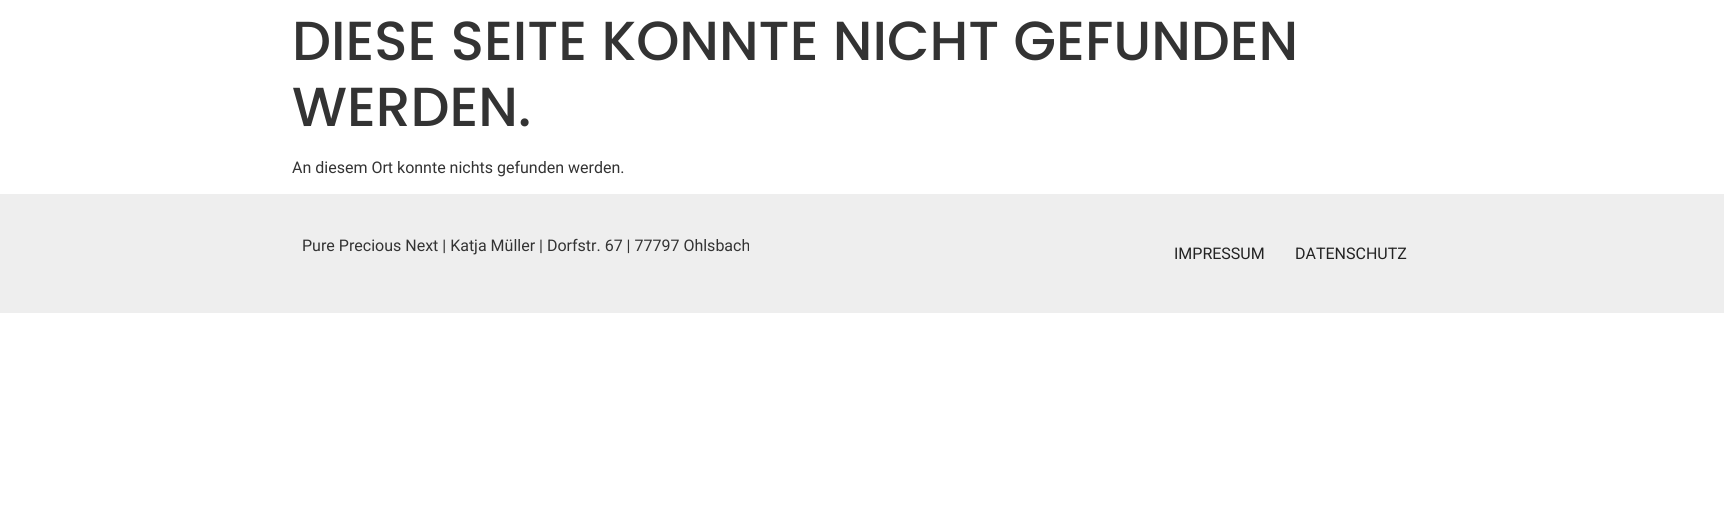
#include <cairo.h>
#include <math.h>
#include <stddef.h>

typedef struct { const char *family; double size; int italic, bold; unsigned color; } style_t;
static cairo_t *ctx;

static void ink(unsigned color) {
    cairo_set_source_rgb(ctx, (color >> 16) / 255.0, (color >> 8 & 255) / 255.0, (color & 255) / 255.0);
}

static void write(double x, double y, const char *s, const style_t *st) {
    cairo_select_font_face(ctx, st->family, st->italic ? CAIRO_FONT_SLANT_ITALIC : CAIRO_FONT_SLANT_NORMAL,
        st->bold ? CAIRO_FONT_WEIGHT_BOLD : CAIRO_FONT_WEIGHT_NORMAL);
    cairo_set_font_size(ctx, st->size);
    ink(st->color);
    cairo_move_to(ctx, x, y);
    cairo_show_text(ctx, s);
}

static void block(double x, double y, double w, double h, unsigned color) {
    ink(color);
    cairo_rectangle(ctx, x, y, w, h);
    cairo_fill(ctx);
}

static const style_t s1 = {"Poppins Medium", 55, 0, 0, 0x333333};
static const style_t s2 = {"Roboto", 16, 0, 0, 0x333333};
static const style_t s3 = {"Roboto", 16, 0, 0, 0x232323};

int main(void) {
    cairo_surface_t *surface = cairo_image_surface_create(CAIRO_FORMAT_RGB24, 1724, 520);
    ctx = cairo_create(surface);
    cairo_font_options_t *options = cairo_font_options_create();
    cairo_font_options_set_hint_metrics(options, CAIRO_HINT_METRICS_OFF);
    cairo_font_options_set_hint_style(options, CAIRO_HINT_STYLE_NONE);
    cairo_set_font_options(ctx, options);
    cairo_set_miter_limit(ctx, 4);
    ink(0xffffff);
    cairo_paint(ctx);
    write(292, 60, "DIESE SEITE KONNTE NICHT GEFUNDEN", &s1);
    write(292, 126, "WERDEN.", &s1);
    write(292, 173, "An diesem Ort konnte nichts gefunden werden.", &s2);
    block(0, 194, 1724, 119, 0xeeeeee);
    write(302, 251, "Pure Precious Next | Katja Müller | Dorfstr. 67 | 77797 Ohlsbach", &s2);
    write(1174, 259, "IMPRESSUM", &s3);
    write(1295, 259, "DATENSCHUTZ", &s3);
    cairo_surface_write_to_png(surface, "screenshot.png");
    cairo_font_options_destroy(options);
    cairo_destroy(ctx);
    cairo_surface_destroy(surface);
    return 0;
}
